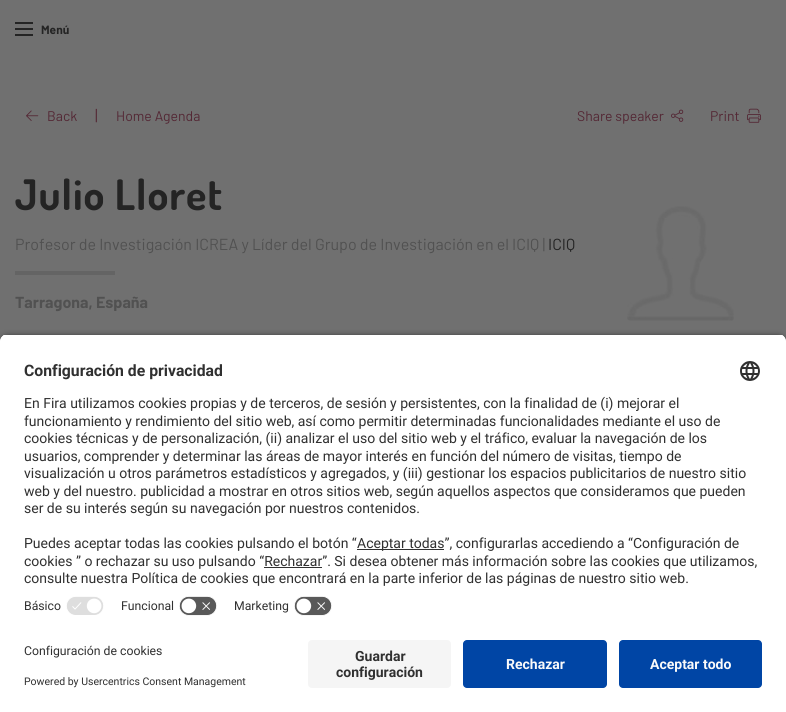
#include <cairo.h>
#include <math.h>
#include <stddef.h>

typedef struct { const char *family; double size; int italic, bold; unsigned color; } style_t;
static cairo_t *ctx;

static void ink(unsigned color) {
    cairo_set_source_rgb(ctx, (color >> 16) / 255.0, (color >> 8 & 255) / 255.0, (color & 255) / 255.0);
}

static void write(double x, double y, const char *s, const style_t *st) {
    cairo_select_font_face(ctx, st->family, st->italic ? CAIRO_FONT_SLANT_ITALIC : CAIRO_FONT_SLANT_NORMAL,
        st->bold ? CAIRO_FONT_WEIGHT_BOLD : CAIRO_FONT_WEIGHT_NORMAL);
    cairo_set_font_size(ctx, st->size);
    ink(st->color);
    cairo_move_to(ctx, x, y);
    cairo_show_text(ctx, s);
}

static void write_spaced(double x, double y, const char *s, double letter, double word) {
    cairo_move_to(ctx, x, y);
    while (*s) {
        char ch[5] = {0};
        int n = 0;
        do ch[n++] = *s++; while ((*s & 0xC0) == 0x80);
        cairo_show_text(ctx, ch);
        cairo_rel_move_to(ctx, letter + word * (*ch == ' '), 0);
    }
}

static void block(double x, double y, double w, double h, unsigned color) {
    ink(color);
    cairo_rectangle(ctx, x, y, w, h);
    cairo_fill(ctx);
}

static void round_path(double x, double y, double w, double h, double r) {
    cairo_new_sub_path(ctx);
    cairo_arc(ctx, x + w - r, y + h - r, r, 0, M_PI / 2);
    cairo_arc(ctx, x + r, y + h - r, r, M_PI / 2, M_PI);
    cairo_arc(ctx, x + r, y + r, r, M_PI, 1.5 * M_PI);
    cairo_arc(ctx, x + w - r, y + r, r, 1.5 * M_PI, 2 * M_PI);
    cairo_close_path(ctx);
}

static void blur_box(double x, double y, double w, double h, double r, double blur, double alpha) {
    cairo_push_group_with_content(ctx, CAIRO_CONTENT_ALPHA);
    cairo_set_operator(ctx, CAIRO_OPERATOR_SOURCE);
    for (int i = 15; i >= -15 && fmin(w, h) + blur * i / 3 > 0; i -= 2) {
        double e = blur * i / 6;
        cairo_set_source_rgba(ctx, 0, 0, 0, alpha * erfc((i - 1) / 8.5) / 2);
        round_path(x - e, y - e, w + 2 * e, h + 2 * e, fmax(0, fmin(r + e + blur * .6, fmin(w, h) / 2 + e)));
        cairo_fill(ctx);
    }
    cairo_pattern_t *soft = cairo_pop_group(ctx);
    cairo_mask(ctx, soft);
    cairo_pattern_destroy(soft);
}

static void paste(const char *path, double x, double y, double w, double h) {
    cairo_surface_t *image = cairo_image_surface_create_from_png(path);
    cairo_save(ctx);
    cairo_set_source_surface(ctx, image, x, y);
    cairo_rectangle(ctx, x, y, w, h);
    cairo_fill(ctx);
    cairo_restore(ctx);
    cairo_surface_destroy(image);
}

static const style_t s1 = {"Barlow", 12, 0, 1, 0x242424};
static const style_t s2 = {"Barlow", 14, 0, 0, 0x542835};
static const style_t s3 = {"Barlow", 16, 0, 0, 0x542835};
static const style_t s4 = {"Barlow", 16, 0, 0, 0x515151};
static const style_t s5 = {"Barlow", 16, 0, 0, 0x242424};
static const style_t s6 = {"Barlow", 16, 0, 1, 0x515151};
static const style_t s7 = {"Roboto", 15.75, 0, 1, 0x303030};
static const style_t s8 = {"Roboto", 14, 0, 0, 0x303030};
static const style_t s9 = {"Roboto", 12.25, 0, 0, 0x303030};
static const style_t s10 = {"Roboto", 10.5, 0, 0, 0x303030};
static const style_t s11 = {"Roboto", 14, 0, 1, 0x303030};
static const style_t s12 = {"Roboto", 14, 0, 1, 0xfafafa};

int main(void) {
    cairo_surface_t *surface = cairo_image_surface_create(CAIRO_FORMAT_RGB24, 786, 712);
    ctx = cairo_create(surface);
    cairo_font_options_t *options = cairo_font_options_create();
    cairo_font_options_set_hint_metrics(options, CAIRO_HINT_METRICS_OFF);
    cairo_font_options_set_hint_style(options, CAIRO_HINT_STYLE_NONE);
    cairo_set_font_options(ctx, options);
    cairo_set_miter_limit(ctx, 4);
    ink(0x707070);
    cairo_paint(ctx);
    block(15, 22, 18, 2, 0x242424);
    block(15, 28, 18, 2, 0x242424);
    block(15, 34, 18, 2, 0x242424);
    write(41, 34, "Menú", &s1);
    paste("pic1.png", 26, 110, 13, 11);
    write(47, 121, "Back", &s2);
    write(95, 121, "|", &s3);
    write(116, 121, "Home Agenda", &s2);
    write(577, 121, "Share speaker", &s2);
    paste("pic2.png", 671, 109, 13, 13);
    write(710, 121, "Print", &s2);
    paste("pic3.png", 747, 108, 14, 15);
    cairo_select_font_face(ctx, "Dosis", CAIRO_FONT_SLANT_NORMAL, CAIRO_FONT_WEIGHT_BOLD);
    cairo_set_font_size(ctx, 42);
    ink(0x242424);
    write_spaced(15, 210, "Julio Lloret", 1, 0);
    write(15, 250, "Profesor de Investigación ICREA y Líder del Grupo de Investigación en el ICIQ |", &s4);
    write(548, 250, "ICIQ", &s5);
    block(15, 271, 100, 4, 0x646464);
    write(15, 308, "Tarragona, España", &s6);
    paste("pic4.png", 627, 206, 107, 115);
    ink(0x000000);
    blur_box(0, 337, 786, 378, 8, 3.5, 0.8);
    cairo_save(ctx);
    cairo_new_path(ctx);
    cairo_move_to(ctx, 8, 334);
    cairo_line_to(ctx, 778, 334);
    cairo_curve_to(ctx, 782.5, 334, 786, 337.5, 786, 342);
    cairo_line_to(ctx, 786, 632);
    cairo_line_to(ctx, 0, 632);
    cairo_line_to(ctx, 0, 342);
    cairo_curve_to(ctx, 0, 337.5, 3.5, 334, 8, 334);
    cairo_close_path(ctx);
    cairo_clip(ctx);
    block(0, 335, 786, 297, 0xffffff);
    block(0, 335, 786, 257, 0xffffff);
    cairo_restore(ctx);
    write(24, 376, "Configuración de privacidad", &s7);
    paste("pic5.png", 740, 361, 20, 20);
    write(24, 408, "En Fira utilizamos cookies propias y de terceros, de sesión y persistentes, con la finalidad de (i) mejorar el", &s8);
    write(24, 426, "funcionamiento y rendimiento del sitio web, así como permitir determinadas funcionalidades mediante el uso de", &s8);
    write(24, 443, "cookies técnicas y de personalización, (ii) analizar el uso del sitio web y el tráfico, evaluar la navegación de los", &s8);
    write(24, 461, "usuarios, comprender y determinar las áreas de mayor interés en función del número de visitas, tiempo de", &s8);
    write(24, 478, "visualización u otros parámetros estadísticos y agregados, y (iii) gestionar los espacios publicitarios de nuestro sitio", &s8);
    write(24, 496, "web y del nuestro. publicidad a mostrar en otros sitios web, según aquellos aspectos que consideramos que pueden", &s8);
    write(24, 513, "ser de su interés según su navegación por nuestros contenidos.", &s8);
    write(24, 548, "Puedes aceptar todas las cookies pulsando el botón “", &s8);
    block(357, 549, 87, 1, 0x303030);
    write(357, 548, "Aceptar todas”, configurarlas accediendo a “Configuración de", &s8);
    write(24, 566, "cookies ” o rechazar su uso pulsando “Rechazar”. Si desea obtener más información sobre las cookies que utilizamos,", &s8);
    block(264, 567, 58, 1, 0x303030);
    write(24, 583, "consulte nuestra Política de cookies que encontrará en la parte inferior de las páginas de nuestro sitio web.", &s8);
    write(24, 610, "Básico", &s9);
    paste("pic6.png", 66, 596, 38, 19);
    write(121, 610, "Funcional", &s9);
    paste("pic7.png", 179, 596, 38, 20);
    write(234, 610, "Marketing", &s9);
    paste("pic7.png", 294, 596, 38, 20);
    block(0, 632, 786, 80, 0xffffff);
    write(24, 655, "Configuración de cookies", &s9);
    write(24, 685, "Powered by Usercentrics Consent Management", &s10);
    ink(0xf5f5f5);
    round_path(308, 640, 143, 48, 4);
    cairo_fill(ctx);
    write(355, 661, "Guardar", &s11);
    write(336, 677, "configuración", &s11);
    ink(0x0045a5);
    round_path(463, 640, 144, 48, 4);
    cairo_fill(ctx);
    write(506, 669, "Rechazar", &s12);
    ink(0x0045a5);
    round_path(619, 640, 143, 48, 4);
    cairo_fill(ctx);
    write(650, 669, "Aceptar todo", &s12);
    cairo_surface_write_to_png(surface, "screenshot.png");
    cairo_font_options_destroy(options);
    cairo_destroy(ctx);
    cairo_surface_destroy(surface);
    return 0;
}
